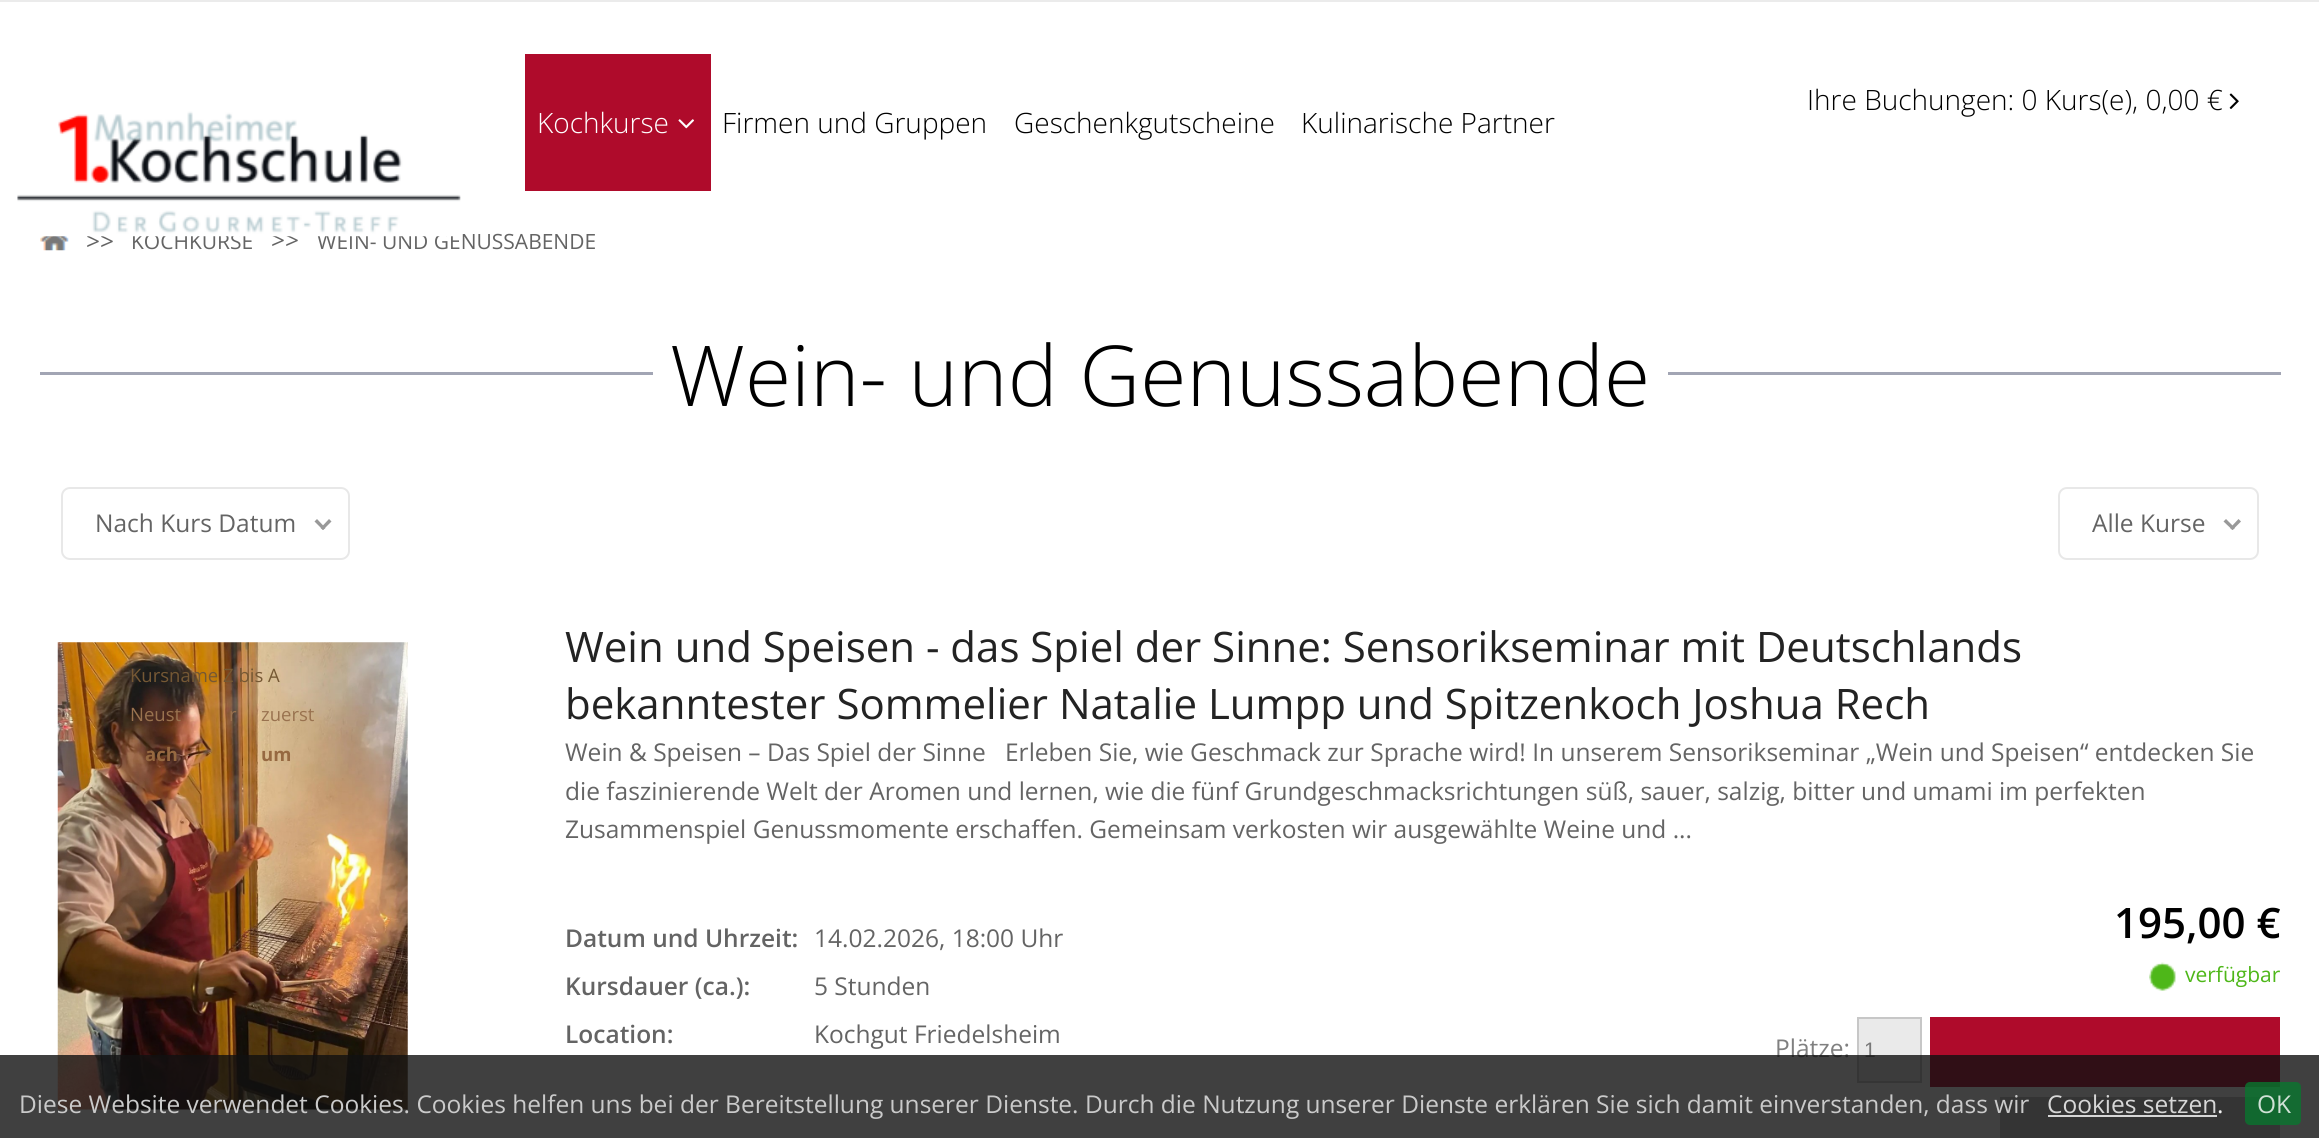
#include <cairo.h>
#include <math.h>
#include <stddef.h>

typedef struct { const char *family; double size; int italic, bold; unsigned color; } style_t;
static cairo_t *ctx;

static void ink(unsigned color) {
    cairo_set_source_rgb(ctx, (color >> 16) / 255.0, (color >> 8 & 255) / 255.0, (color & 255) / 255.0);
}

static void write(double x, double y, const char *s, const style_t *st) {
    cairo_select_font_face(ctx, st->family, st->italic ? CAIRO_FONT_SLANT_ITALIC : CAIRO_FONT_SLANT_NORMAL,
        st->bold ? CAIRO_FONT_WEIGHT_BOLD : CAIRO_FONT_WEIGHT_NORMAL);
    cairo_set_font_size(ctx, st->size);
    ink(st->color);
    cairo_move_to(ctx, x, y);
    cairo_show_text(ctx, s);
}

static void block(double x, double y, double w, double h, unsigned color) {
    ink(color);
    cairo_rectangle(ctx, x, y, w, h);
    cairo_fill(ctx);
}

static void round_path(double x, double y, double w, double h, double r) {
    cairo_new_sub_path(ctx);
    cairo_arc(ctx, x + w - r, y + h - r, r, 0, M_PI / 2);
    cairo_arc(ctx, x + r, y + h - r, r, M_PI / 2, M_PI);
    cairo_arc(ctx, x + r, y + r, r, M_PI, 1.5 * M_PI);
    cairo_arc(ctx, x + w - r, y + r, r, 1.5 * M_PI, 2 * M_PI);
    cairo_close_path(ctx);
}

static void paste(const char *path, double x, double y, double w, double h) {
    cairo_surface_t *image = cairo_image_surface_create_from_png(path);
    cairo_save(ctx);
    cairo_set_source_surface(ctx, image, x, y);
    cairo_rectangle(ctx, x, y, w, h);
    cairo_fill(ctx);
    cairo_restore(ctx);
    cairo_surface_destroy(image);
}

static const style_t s1 = {"Open Sans Light", 28, 0, 0, 0x000000};
static const style_t s2 = {"Open Sans", 24.5, 0, 0, 0x646464};
static const style_t s3 = {"Open Sans", 21, 0, 0, 0x646464};
static const style_t s4 = {"Open Sans Light", 28, 0, 0, 0xffffff};
static const style_t s5 = {"Open Sans Light", 84, 0, 0, 0x000000};
static const style_t s6 = {"Open Sans", 18.5, 0, 0, 0x755834};
static const style_t s7 = {"Open Sans", 18.5, 0, 0, 0x99724f};
static const style_t s8 = {"Open Sans", 18.5, 0, 1, 0x966941};
static const style_t s9 = {"Open Sans", 42, 0, 0, 0x232323};
static const style_t s10 = {"Open Sans SemiBold", 24.5, 0, 0, 0x646464};
static const style_t s11 = {"Open Sans SemiBold", 42, 0, 0, 0x000000};
static const style_t s12 = {"Open Sans", 21, 0, 0, 0x4eb719};
static const style_t s13 = {"Open Sans", 24.5, 0, 0, 0x808080};
static const style_t s14 = {"Liberation Sans", 21, 0, 0, 0x777777};
static const style_t s15 = {"Open Sans", 24.5, 0, 0, 0xcacaca};
static const style_t s16 = {"Open Sans", 24.5, 0, 0, 0xd7d7d7};
static const style_t s17 = {"Open Sans", 24.5, 0, 0, 0xf3f3f3};
static const style_t s18 = {"Open Sans", 24.5, 0, 0, 0xd0e1d6};

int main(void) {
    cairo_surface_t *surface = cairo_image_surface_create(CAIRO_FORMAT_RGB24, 2319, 1138);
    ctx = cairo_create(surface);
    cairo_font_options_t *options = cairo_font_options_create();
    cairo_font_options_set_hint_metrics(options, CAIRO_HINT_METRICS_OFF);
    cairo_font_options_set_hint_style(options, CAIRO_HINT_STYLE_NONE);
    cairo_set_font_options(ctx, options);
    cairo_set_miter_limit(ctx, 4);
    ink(0xffffff);
    cairo_paint(ctx);
    block(0, 0, 2319, 2, 0xebebeb);
    write(1807, 110, "Ihre Buchungen: 0 Kurs(e), 0,00 €", &s1);
    paste("pic1.png", 2229, 93, 10, 16);
    paste("pic4.png", 40, 236, 29, 15);
    write(86, 250, ">>", &s2);
    write(131, 249, "KOCHKURSE", &s3);
    write(271, 249, ">>", &s2);
    write(317, 249, "WEIN- UND GENUSSABENDE", &s3);
    paste("pic2.png", 17, 111, 444, 126);
    block(525, 54, 186, 137, 0xaf0b2b);
    write(537, 133, "Kochkurse", &s4);
    paste("pic3.png", 678, 119, 16, 10);
    write(722, 133, "Firmen und Gruppen", &s1);
    write(1014, 133, "Geschenkgutscheine", &s1);
    write(1301, 133, "Kulinarische Partner", &s1);
    block(40, 372, 2241, 3, 0xa2a5b4);
    block(653, 372, 1015, 3, 0xffffff);
    write(670, 406, "Wein- und Genussabende", &s5);
    round_path(62, 488, 287, 71, 8);
    ink(0xe8e8e8);
    cairo_stroke(ctx);
    write(95, 532, "Nach Kurs Datum", &s2);
    ink(0x999999);
    cairo_new_path(ctx);
    cairo_move_to(ctx, 329, 519);
    cairo_line_to(ctx, 331.5, 521.5);
    cairo_line_to(ctx, 323, 530);
    cairo_line_to(ctx, 320.5, 528);
    cairo_close_path(ctx);
    cairo_fill(ctx);
    cairo_new_path(ctx);
    cairo_move_to(ctx, 317, 519);
    cairo_line_to(ctx, 325.5, 528);
    cairo_line_to(ctx, 323, 530);
    cairo_line_to(ctx, 314.5, 521.5);
    cairo_close_path(ctx);
    cairo_fill(ctx);
    paste("pic5.png", 57, 642, 351, 468);
    write(130, 682, "Kursname Z bis A", &s6);
    write(130, 721, "Neust", &s7);
    write(229, 721, "r", &s7);
    write(261, 721, "zuerst", &s7);
    write(145, 761, "ach", &s8);
    write(261, 761, "um", &s8);
    round_path(2059, 488, 199, 71, 8);
    ink(0xe8e8e8);
    cairo_stroke(ctx);
    write(2092, 532, "Alle Kurse", &s2);
    ink(0x999999);
    cairo_new_path(ctx);
    cairo_move_to(ctx, 2238.5, 519);
    cairo_line_to(ctx, 2241, 521.5);
    cairo_line_to(ctx, 2232.5, 530);
    cairo_line_to(ctx, 2230, 528);
    cairo_close_path(ctx);
    cairo_fill(ctx);
    cairo_new_path(ctx);
    cairo_move_to(ctx, 2226, 519);
    cairo_line_to(ctx, 2235, 528);
    cairo_line_to(ctx, 2232.5, 530);
    cairo_line_to(ctx, 2223.5, 521.5);
    cairo_close_path(ctx);
    cairo_fill(ctx);
    write(565, 662, "Wein und Speisen - das Spiel der Sinne: Sensorikseminar mit Deutschlands", &s9);
    write(565, 719, "bekanntester Sommelier Natalie Lumpp und Spitzenkoch Joshua Rech", &s9);
    write(565, 761, "Wein & Speisen – Das Spiel der Sinne", &s2);
    write(1005, 761, "Erleben Sie, wie Geschmack zur Sprache wird! In unserem Sensorikseminar „Wein und Speisen“ entdecken Sie", &s2);
    write(565, 800, "die faszinierende Welt der Aromen und lernen, wie die fünf Grundgeschmacksrichtungen süß, sauer, salzig, bitter und umami im perfekten", &s2);
    write(565, 838, "Zusammenspiel Genussmomente erschaffen. Gemeinsam verkosten wir ausgewählte Weine und ...", &s2);
    write(565, 947, "Datum und Uhrzeit:", &s10);
    write(814, 947, "14.02.2026, 18:00 Uhr", &s2);
    write(565, 995, "Kursdauer (ca.):", &s10);
    write(814, 995, "5 Stunden", &s2);
    write(565, 1043, "Location:", &s10);
    write(814, 1043, "Kochgut Friedelsheim", &s2);
    write(2114, 938, "195,00 €", &s11);
    paste("pic6.png", 2149, 962, 27, 29);
    write(2185, 982, "verfügbar", &s12);
    write(1775, 1057, "Plätze:", &s13);
    ink(0xeaeaea);
    cairo_rectangle(ctx, 1858, 1018, 63, 64);
    cairo_fill_preserve(ctx);
    ink(0xc7c7c7);
    cairo_stroke(ctx);
    write(1864, 1057, "1", &s14);
    block(1930, 1017, 350, 70, 0xaf0b2b);
    block(2000, 1097, 280, 41, 0xc5c5c5);
    cairo_set_source_rgba(ctx, 0.067, 0.067, 0.067, 0.8);
    cairo_rectangle(ctx, 0, 1055, 2319, 83);
    cairo_fill(ctx);
    write(19, 1113, "Diese Website verwendet Cookies. Cookies helfen uns bei der Bereitstellung unserer Dienste. Durch die Nutzung unserer Dienste erklären Sie sich damit einverstanden, dass wir", &s15);
    write(2047, 1113, "Cookies setzen", &s16);
    cairo_set_source_rgba(ctx, 1, 1, 1, 0.8);
    cairo_rectangle(ctx, 2048, 1115, 169, 2);
    cairo_fill(ctx);
    write(2217, 1113, ".", &s17);
    cairo_set_source_rgba(ctx, 0.039, 0.463, 0.184, 0.8);
    round_path(2245, 1082, 56, 43, 5);
    cairo_fill(ctx);
    write(2257, 1113, "OK", &s18);
    cairo_surface_write_to_png(surface, "screenshot.png");
    cairo_font_options_destroy(options);
    cairo_destroy(ctx);
    cairo_surface_destroy(surface);
    return 0;
}
